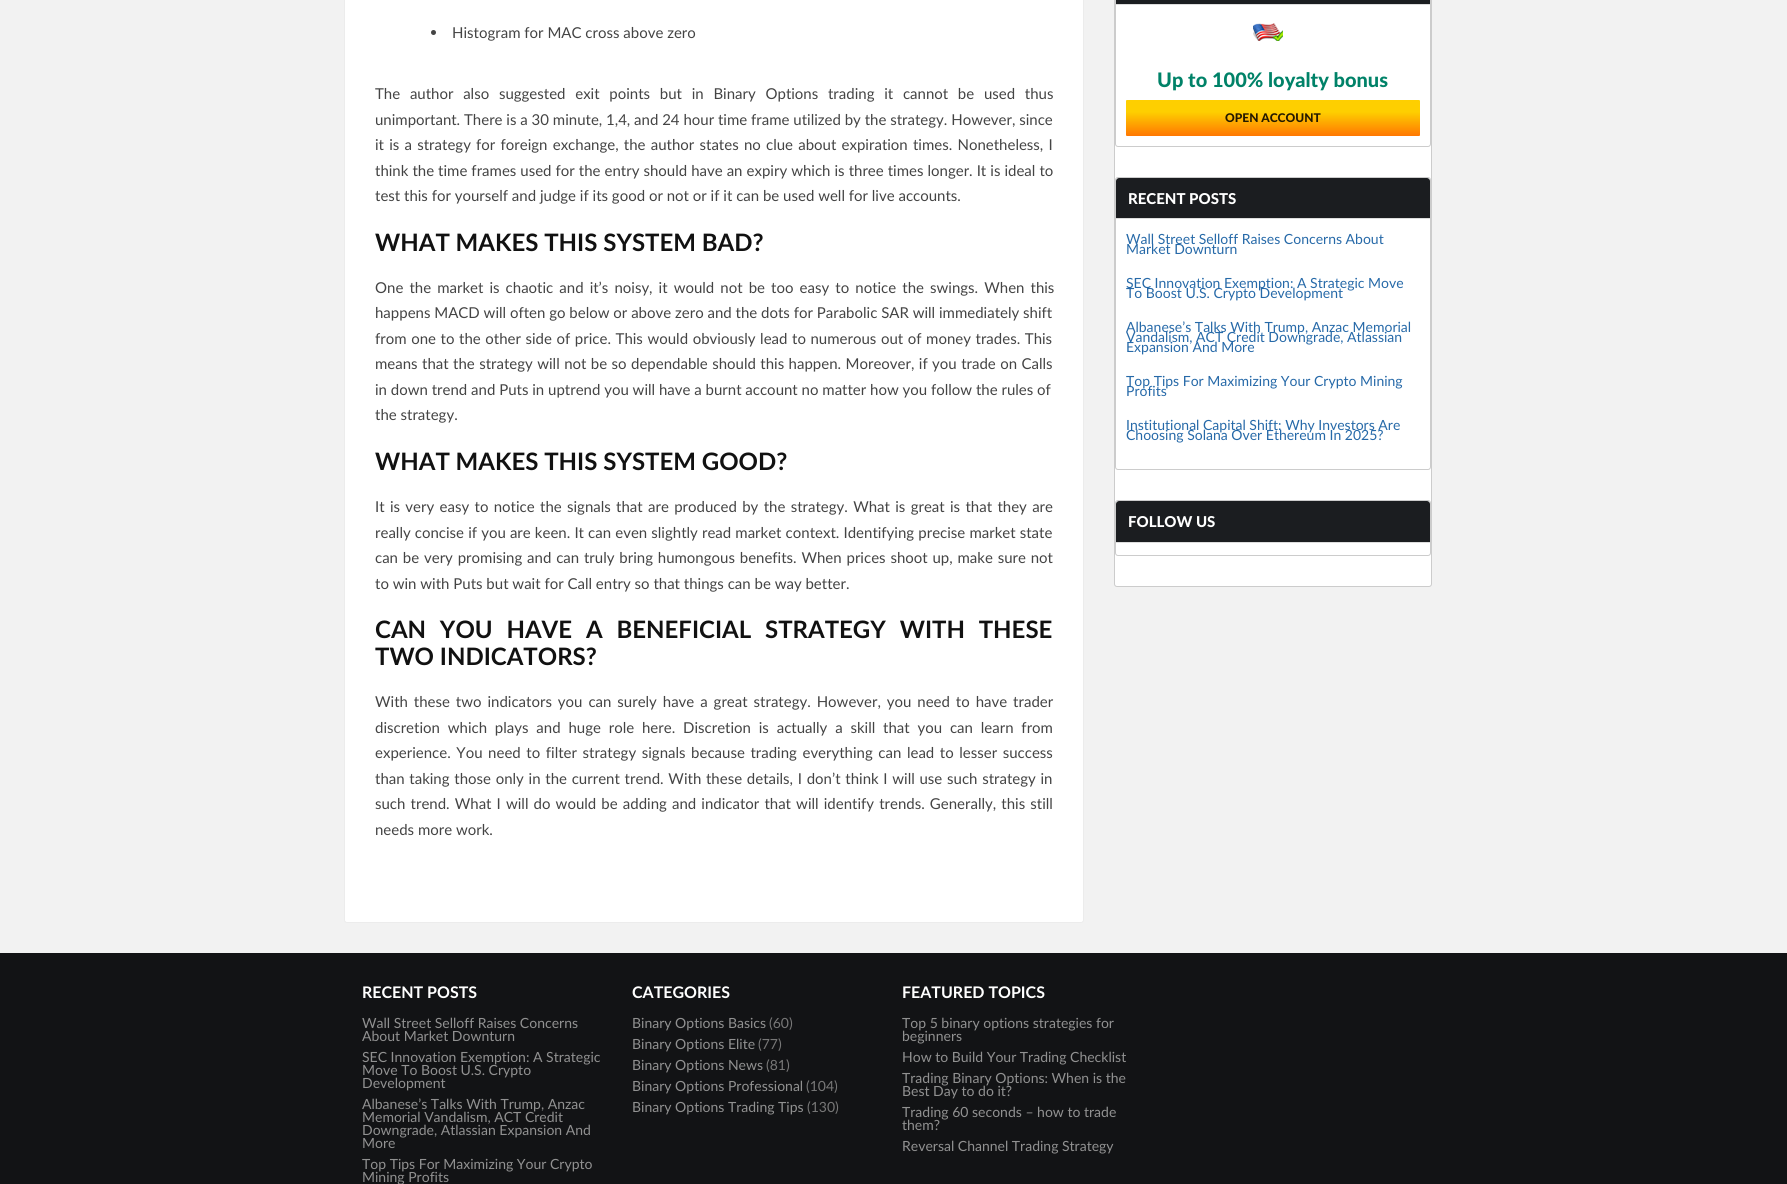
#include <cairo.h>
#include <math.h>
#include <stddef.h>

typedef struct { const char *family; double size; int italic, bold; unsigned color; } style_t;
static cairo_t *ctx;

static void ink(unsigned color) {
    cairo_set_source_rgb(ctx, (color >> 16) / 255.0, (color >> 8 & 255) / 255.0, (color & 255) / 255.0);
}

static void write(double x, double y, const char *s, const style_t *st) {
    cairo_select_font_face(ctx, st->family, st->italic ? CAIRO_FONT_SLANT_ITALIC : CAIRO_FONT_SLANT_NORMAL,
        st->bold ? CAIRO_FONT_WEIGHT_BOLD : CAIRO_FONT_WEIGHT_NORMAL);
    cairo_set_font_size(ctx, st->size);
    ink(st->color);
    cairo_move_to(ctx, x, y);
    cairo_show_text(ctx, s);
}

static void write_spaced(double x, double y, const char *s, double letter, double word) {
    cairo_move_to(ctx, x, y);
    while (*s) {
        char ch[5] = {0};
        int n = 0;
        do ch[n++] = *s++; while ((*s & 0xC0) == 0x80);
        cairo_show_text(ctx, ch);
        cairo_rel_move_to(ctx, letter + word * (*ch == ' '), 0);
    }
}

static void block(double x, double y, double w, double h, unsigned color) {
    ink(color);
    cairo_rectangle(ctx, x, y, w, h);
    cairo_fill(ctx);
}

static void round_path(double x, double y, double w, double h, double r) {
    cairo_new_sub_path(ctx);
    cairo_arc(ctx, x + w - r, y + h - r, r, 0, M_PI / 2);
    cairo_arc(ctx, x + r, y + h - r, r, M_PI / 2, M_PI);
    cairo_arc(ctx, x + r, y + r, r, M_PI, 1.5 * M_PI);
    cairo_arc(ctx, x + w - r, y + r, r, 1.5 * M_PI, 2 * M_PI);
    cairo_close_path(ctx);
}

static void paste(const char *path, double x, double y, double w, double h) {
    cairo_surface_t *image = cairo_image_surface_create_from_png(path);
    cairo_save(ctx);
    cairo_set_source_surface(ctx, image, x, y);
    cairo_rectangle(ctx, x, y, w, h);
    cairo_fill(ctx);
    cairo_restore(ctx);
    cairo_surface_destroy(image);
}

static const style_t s1 = {"Lato", 15, 0, 0, 0x444444};
static const style_t s2 = {"Lato", 24, 0, 1, 0x111111};
static const style_t s3 = {"Lato Black", 20, 0, 0, 0x008268};
static const style_t s4 = {"Lato Black", 12, 0, 0, 0x221900};
static const style_t s5 = {"Lato Black", 15, 0, 0, 0xffffff};
static const style_t s6 = {"Lato", 14, 0, 0, 0x2669a8};
static const style_t s7 = {"Lato", 16, 0, 1, 0xffffff};
static const style_t s8 = {"Lato", 14, 0, 0, 0x919191};
static const style_t s9 = {"Lato", 14, 0, 0, 0x777777};

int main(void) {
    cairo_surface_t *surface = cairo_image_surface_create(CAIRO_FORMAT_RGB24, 1787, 1184);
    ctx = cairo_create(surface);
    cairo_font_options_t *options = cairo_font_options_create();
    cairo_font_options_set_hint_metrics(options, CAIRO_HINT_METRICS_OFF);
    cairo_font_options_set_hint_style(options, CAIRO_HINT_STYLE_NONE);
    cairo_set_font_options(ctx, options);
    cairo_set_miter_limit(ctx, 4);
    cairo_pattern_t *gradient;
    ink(0xf2f2f2);
    cairo_paint(ctx);
    ink(0xffffff);
    round_path(344.5, -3.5, 739, 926, 2.5);
    cairo_fill_preserve(ctx);
    ink(0xececec);
    cairo_set_line_width(ctx, 1);
    cairo_stroke(ctx);
    ink(0x444444);
    cairo_arc(ctx, 433.5, 32.5, 2.5, 0, 2 * M_PI);
    cairo_fill(ctx);
    write(452, 38, "Histogram for MAC cross above zero", &s1);
    write_spaced(375, 99, "The author also suggested exit points but in Binary Options trading it cannot be used thus", 0, 5.9);
    write(375, 125, "unimportant. There is a 30 minute, 1,4, and 24 hour time frame utilized by the strategy. However, since", &s1);
    write_spaced(375, 150, "it is a strategy for foreign exchange, the author states no clue about expiration times. Nonetheless, I", 0, 1.4);
    write_spaced(375, 176, "think the time frames used for the entry should have an expiry which is three times longer. It is ideal to", 0, 0.2);
    write(375, 201, "test this for yourself and judge if its good or not or if it can be used well for live accounts.", &s1);
    write(375, 251, "WHAT MAKES THIS SYSTEM BAD?", &s2);
    cairo_select_font_face(ctx, "Lato", CAIRO_FONT_SLANT_NORMAL, CAIRO_FONT_WEIGHT_NORMAL);
    cairo_set_font_size(ctx, 15);
    ink(0x444444);
    write_spaced(375, 293, "One the market is chaotic and it’s noisy, it would not be too easy to notice the swings. When this", 0, 2.25);
    write(375, 318, "happens MACD will often go below or above zero and the dots for Parabolic SAR will immediately shift", &s1);
    write_spaced(375, 344, "from one to the other side of price. This would obviously lead to numerous out of money trades. This", 0, 0.75);
    write_spaced(375, 369, "means that the strategy will not be so dependable should this happen. Moreover, if you trade on Calls", 0, 0.6);
    write(375, 395, "in down trend and Puts in uptrend you will have a burnt account no matter how you follow the rules of", &s1);
    write(375, 420, "the strategy.", &s1);
    write(375, 470, "WHAT MAKES THIS SYSTEM GOOD?", &s2);
    cairo_select_font_face(ctx, "Lato", CAIRO_FONT_SLANT_NORMAL, CAIRO_FONT_WEIGHT_NORMAL);
    cairo_set_font_size(ctx, 15);
    ink(0x444444);
    write_spaced(375, 512, "It is very easy to notice the signals that are produced by the strategy. What is great is that they are", 0, 1.5);
    write_spaced(375, 538, "really concise if you are keen. It can even slightly read market context. Identifying precise market state", 0, 0.3);
    write_spaced(375, 563, "can be very promising and can truly bring humongous benefits. When prices shoot up, make sure not", 0, 1);
    write(375, 589, "to win with Puts but wait for Call entry so that things can be way better.", &s1);
    cairo_select_font_face(ctx, "Lato", CAIRO_FONT_SLANT_NORMAL, CAIRO_FONT_WEIGHT_BOLD);
    cairo_set_font_size(ctx, 24);
    ink(0x111111);
    write_spaced(375, 638, "CAN YOU HAVE A BENEFICIAL STRATEGY WITH THESE", 0, 8);
    write(375, 665, "TWO INDICATORS?", &s2);
    cairo_select_font_face(ctx, "Lato", CAIRO_FONT_SLANT_NORMAL, CAIRO_FONT_WEIGHT_NORMAL);
    cairo_set_font_size(ctx, 15);
    ink(0x444444);
    write_spaced(375, 707, "With these two indicators you can surely have a great strategy. However, you need to have trader", 0, 2.1);
    write_spaced(375, 733, "discretion which plays and huge role here. Discretion is actually a skill that you can learn from", 0, 4);
    write_spaced(375, 758, "experience. You need to filter strategy signals because trading everything can lead to lesser success", 0, 1.75);
    write_spaced(375, 784, "than taking those only in the current trend. With these details, I don’t think I will use such strategy in", 0, 0.9);
    write_spaced(375, 809, "such trend. What I will do would be adding and indicator that will identify trends. Generally, this still", 0, 1.3);
    write(375, 835, "needs more work.", &s1);
    ink(0xffffff);
    round_path(1114.5, -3.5, 317, 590, 2.5);
    cairo_fill_preserve(ctx);
    ink(0xcccccc);
    cairo_stroke(ctx);
    round_path(1115.5, -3.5, 315, 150, 2.5);
    cairo_stroke(ctx);
    block(1116, 0, 314, 4, 0x1b1d20);
    block(1116, 4, 314, 1, 0xdddddd);
    paste("pic1.png", 1253, 23, 30, 18);
    write(1157, 87, "Up to 100% loyalty bonus", &s3);
    gradient = cairo_pattern_create_linear(1273, 100, 1273, 136);
    cairo_pattern_add_color_stop_rgba(gradient, 0.33, 0.996, 0.812, 0, 1);
    cairo_pattern_add_color_stop_rgba(gradient, 1, 1, 0.467, 0.008, 1);
    cairo_set_source(ctx, gradient);
    cairo_pattern_destroy(gradient);
    round_path(1126, 100, 294, 36, 1);
    cairo_fill(ctx);
    write(1225, 122, "OPEN ACCOUNT", &s4);
    round_path(1115.5, 177.5, 315, 292, 2.5);
    ink(0xcccccc);
    cairo_stroke(ctx);
    ink(0x1b1d20);
    cairo_new_path(ctx);
    cairo_move_to(ctx, 1119, 178);
    cairo_line_to(ctx, 1427, 178);
    cairo_curve_to(ctx, 1428.5, 178, 1430, 179.5, 1430, 181);
    cairo_line_to(ctx, 1430, 219);
    cairo_line_to(ctx, 1116, 219);
    cairo_line_to(ctx, 1116, 181);
    cairo_curve_to(ctx, 1116, 179.5, 1117.5, 178, 1119, 178);
    cairo_close_path(ctx);
    cairo_fill(ctx);
    block(1116, 218, 314, 1, 0xdddddd);
    write(1128, 204, "RECENT POSTS", &s5);
    write(1126, 244, "Wall Street Selloff Raises Concerns About", &s6);
    write(1126, 254, "Market Downturn", &s6);
    write(1126, 288, "SEC Innovation Exemption: A Strategic Move", &s6);
    write(1126, 298, "To Boost U.S. Crypto Development", &s6);
    write(1126, 332, "Albanese’s Talks With Trump, Anzac Memorial", &s6);
    write(1126, 342, "Vandalism, ACT Credit Downgrade, Atlassian", &s6);
    write(1126, 352, "Expansion And More", &s6);
    write(1126, 386, "Top Tips For Maximizing Your Crypto Mining", &s6);
    write(1126, 396, "Profits", &s6);
    write(1126, 430, "Institutional Capital Shift: Why Investors Are", &s6);
    write(1126, 440, "Choosing Solana Over Ethereum In 2025?", &s6);
    round_path(1115.5, 500.5, 315, 55, 2.5);
    ink(0xcccccc);
    cairo_stroke(ctx);
    ink(0x1b1d20);
    cairo_new_path(ctx);
    cairo_move_to(ctx, 1119, 501);
    cairo_line_to(ctx, 1427, 501);
    cairo_curve_to(ctx, 1428.5, 501, 1430, 502.5, 1430, 504);
    cairo_line_to(ctx, 1430, 543);
    cairo_line_to(ctx, 1116, 543);
    cairo_line_to(ctx, 1116, 504);
    cairo_curve_to(ctx, 1116, 502.5, 1117.5, 501, 1119, 501);
    cairo_close_path(ctx);
    cairo_fill(ctx);
    block(1116, 542, 314, 1, 0xdddddd);
    write(1128, 527, "FOLLOW US", &s5);
    block(0, 953, 1787, 231, 0x121315);
    write(362, 998, "RECENT POSTS", &s7);
    write(362, 1028, "Wall Street Selloff Raises Concerns", &s8);
    write(362, 1041, "About Market Downturn", &s8);
    write(362, 1062, "SEC Innovation Exemption: A Strategic", &s8);
    write(362, 1075, "Move To Boost U.S. Crypto", &s8);
    write(362, 1088, "Development", &s8);
    write(362, 1109, "Albanese’s Talks With Trump, Anzac", &s8);
    write(362, 1122, "Memorial Vandalism, ACT Credit", &s8);
    write(362, 1135, "Downgrade, Atlassian Expansion And", &s8);
    write(362, 1148, "More", &s8);
    write(362, 1169, "Top Tips For Maximizing Your Crypto", &s8);
    write(362, 1182, "Mining Profits", &s8);
    write(632, 998, "CATEGORIES", &s7);
    write(632, 1028, "Binary Options Basics", &s8);
    write(769, 1028, "(60)", &s9);
    write(632, 1049, "Binary Options Elite", &s8);
    write(758, 1049, "(77)", &s9);
    write(632, 1070, "Binary Options News", &s8);
    write(766, 1070, "(81)", &s9);
    write(632, 1091, "Binary Options Professional", &s8);
    write(806, 1091, "(104)", &s9);
    write(632, 1112, "Binary Options Trading Tips", &s8);
    write(807, 1112, "(130)", &s9);
    write(902, 998, "FEATURED TOPICS", &s7);
    write(902, 1028, "Top 5 binary options strategies for", &s8);
    write(902, 1041, "beginners", &s8);
    write(902, 1062, "How to Build Your Trading Checklist", &s8);
    write(902, 1083, "Trading Binary Options: When is the", &s8);
    write(902, 1096, "Best Day to do it?", &s8);
    write(902, 1117, "Trading 60 seconds – how to trade", &s8);
    write(902, 1130, "them?", &s8);
    write(902, 1151, "Reversal Channel Trading Strategy", &s8);
    cairo_surface_write_to_png(surface, "screenshot.png");
    cairo_font_options_destroy(options);
    cairo_destroy(ctx);
    cairo_surface_destroy(surface);
    return 0;
}
